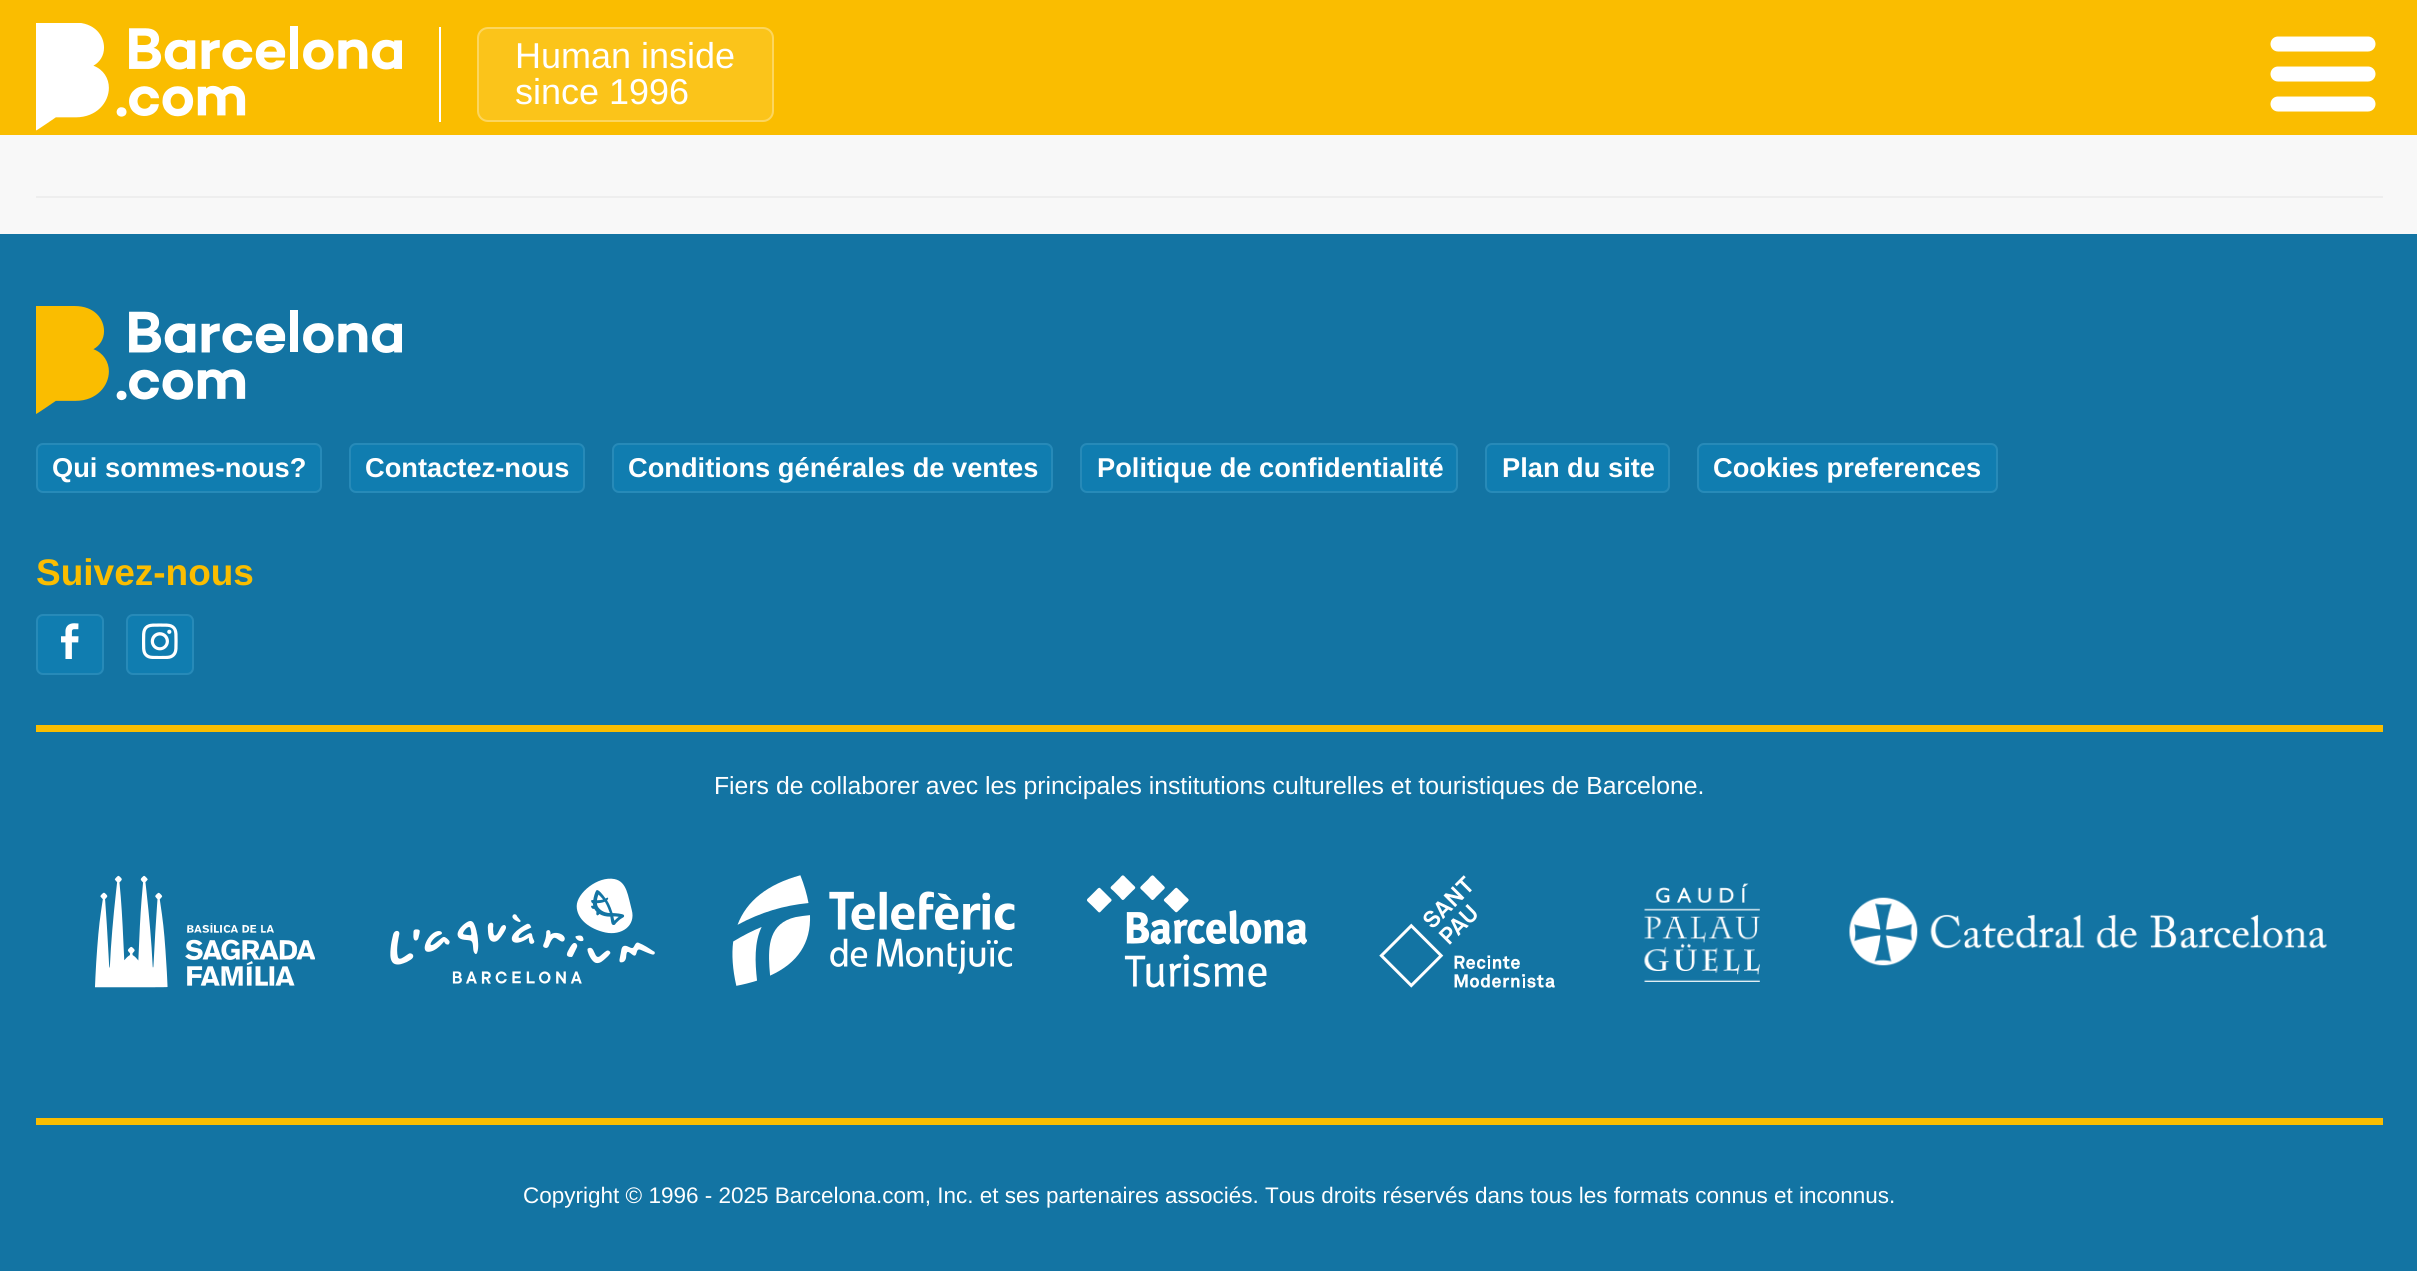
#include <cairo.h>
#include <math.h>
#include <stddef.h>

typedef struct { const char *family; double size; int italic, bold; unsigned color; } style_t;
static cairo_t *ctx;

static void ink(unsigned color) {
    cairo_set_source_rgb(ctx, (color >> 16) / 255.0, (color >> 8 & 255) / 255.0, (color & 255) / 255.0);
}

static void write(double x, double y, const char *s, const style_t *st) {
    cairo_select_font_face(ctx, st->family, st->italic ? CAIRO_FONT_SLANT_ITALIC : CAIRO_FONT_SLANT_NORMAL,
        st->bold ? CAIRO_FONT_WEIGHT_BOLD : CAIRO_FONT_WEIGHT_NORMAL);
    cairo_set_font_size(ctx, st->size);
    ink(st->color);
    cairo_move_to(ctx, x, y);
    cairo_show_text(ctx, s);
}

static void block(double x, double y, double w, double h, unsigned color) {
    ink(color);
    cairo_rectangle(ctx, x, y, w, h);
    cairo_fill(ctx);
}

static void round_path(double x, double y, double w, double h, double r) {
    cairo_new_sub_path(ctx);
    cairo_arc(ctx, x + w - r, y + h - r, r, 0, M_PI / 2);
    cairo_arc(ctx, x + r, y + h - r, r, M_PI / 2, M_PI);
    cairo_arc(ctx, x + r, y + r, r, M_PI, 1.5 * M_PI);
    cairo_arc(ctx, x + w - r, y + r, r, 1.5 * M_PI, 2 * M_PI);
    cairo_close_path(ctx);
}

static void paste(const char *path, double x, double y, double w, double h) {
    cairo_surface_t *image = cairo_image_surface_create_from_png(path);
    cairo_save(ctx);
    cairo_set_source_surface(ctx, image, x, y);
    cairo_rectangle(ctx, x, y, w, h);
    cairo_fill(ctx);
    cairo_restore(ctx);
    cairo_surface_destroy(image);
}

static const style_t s1 = {"Liberation Sans", 36, 0, 0, 0xffffff};
static const style_t s2 = {"Liberation Sans", 27.25, 0, 1, 0xffffff};
static const style_t s3 = {"Liberation Sans", 37, 0, 1, 0xfabd00};
static const style_t s4 = {"Liberation Sans", 24.75, 0, 0, 0xffffff};
static const style_t s5 = {"Liberation Sans", 22.5, 0, 0, 0xffffff};

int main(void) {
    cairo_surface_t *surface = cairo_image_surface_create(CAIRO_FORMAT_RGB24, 2417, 1271);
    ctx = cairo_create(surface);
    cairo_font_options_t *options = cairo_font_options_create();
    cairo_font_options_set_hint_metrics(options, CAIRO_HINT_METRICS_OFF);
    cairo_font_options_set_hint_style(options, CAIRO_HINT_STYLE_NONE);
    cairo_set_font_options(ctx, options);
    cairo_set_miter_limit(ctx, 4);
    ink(0xf8f8f8);
    cairo_paint(ctx);
    block(0, 0, 2417, 135, 0xfabd00);
    paste("pic1.png", 36, 23, 366, 108);
    block(439, 27, 2, 95, 0xffffff);
    ink(0xfbc41a);
    round_path(477, 27, 297, 95, 11);
    cairo_fill(ctx);
    round_path(478, 28, 295, 93, 10);
    cairo_set_source_rgba(ctx, 1, 1, 1, 0.3);
    cairo_stroke(ctx);
    write(515, 68, "Human inside", &s1);
    write(515, 104, "since 1996", &s1);
    cairo_new_path(ctx);
    cairo_move_to(ctx, 2278, 44);
    cairo_line_to(ctx, 2368, 44);
    cairo_close_path(ctx);
    cairo_set_line_width(ctx, 15);
    cairo_set_line_cap(ctx, CAIRO_LINE_CAP_ROUND);
    cairo_set_line_join(ctx, CAIRO_LINE_JOIN_ROUND);
    cairo_stroke(ctx);
    cairo_new_path(ctx);
    cairo_move_to(ctx, 2278, 74);
    cairo_line_to(ctx, 2368, 74);
    cairo_close_path(ctx);
    cairo_stroke(ctx);
    cairo_new_path(ctx);
    cairo_move_to(ctx, 2278, 104);
    cairo_line_to(ctx, 2368, 104);
    cairo_close_path(ctx);
    cairo_stroke(ctx);
    block(36, 196, 2347, 2, 0xeeeeee);
    block(0, 234, 2417, 1037, 0x1374a3);
    block(36, 725, 2347, 7, 0xfabd00);
    paste("pic2.png", 36, 306, 366, 108);
    ink(0x107db0);
    round_path(36, 443, 286, 50, 7);
    cairo_fill(ctx);
    round_path(37, 444, 284, 48, 6);
    cairo_set_source_rgba(ctx, 1, 1, 1, 0.1);
    cairo_set_line_width(ctx, 2);
    cairo_set_line_cap(ctx, CAIRO_LINE_CAP_BUTT);
    cairo_set_line_join(ctx, CAIRO_LINE_JOIN_MITER);
    cairo_stroke(ctx);
    write(52, 477, "Qui sommes-nous?", &s2);
    ink(0x107db0);
    round_path(349, 443, 236, 50, 7);
    cairo_fill(ctx);
    round_path(350, 444, 234, 48, 6);
    cairo_set_source_rgba(ctx, 1, 1, 1, 0.1);
    cairo_stroke(ctx);
    write(365, 477, "Contactez-nous", &s2);
    ink(0x107db0);
    round_path(612, 443, 441, 50, 7);
    cairo_fill(ctx);
    round_path(613, 444, 439, 48, 6);
    cairo_set_source_rgba(ctx, 1, 1, 1, 0.1);
    cairo_stroke(ctx);
    write(628, 477, "Conditions générales de ventes", &s2);
    ink(0x107db0);
    round_path(1080, 443, 378, 50, 7);
    cairo_fill(ctx);
    round_path(1081, 444, 376, 48, 6);
    cairo_set_source_rgba(ctx, 1, 1, 1, 0.1);
    cairo_stroke(ctx);
    write(1097, 477, "Politique de confidentialité", &s2);
    ink(0x107db0);
    round_path(1485, 443, 185, 50, 7);
    cairo_fill(ctx);
    round_path(1486, 444, 183, 48, 6);
    cairo_set_source_rgba(ctx, 1, 1, 1, 0.1);
    cairo_stroke(ctx);
    write(1502, 477, "Plan du site", &s2);
    ink(0x107db0);
    round_path(1697, 443, 301, 50, 7);
    cairo_fill(ctx);
    round_path(1698, 444, 299, 48, 6);
    cairo_set_source_rgba(ctx, 1, 1, 1, 0.1);
    cairo_stroke(ctx);
    write(1713, 477, "Cookies preferences", &s2);
    write(36, 585, "Suivez-nous", &s3);
    ink(0x107db0);
    round_path(36, 614, 68, 61, 7);
    cairo_fill(ctx);
    round_path(37, 615, 66, 59, 6);
    cairo_set_source_rgba(ctx, 1, 1, 1, 0.1);
    cairo_stroke(ctx);
    paste("pic3.png", 61, 623, 18, 36);
    ink(0x107db0);
    round_path(126, 614, 68, 61, 7);
    cairo_fill(ctx);
    round_path(127, 615, 66, 59, 6);
    cairo_set_source_rgba(ctx, 1, 1, 1, 0.1);
    cairo_stroke(ctx);
    paste("pic4.png", 142, 623, 36, 36);
    block(36, 1118, 2347, 7, 0xfabd00);
    write(714, 794, "Fiers de collaborer avec les principales institutions culturelles et touristiques de Barcelone.", &s4);
    paste("pic5.png", 95, 875, 220, 113);
    paste("pic6.png", 390, 878, 265, 106);
    paste("pic7.png", 732, 875, 283, 111);
    paste("pic8.png", 1087, 875, 220, 113);
    paste("pic9.png", 1379, 875, 176, 113);
    paste("pic10.png", 1644, 883, 116, 99);
    paste("pic11.png", 1849, 897, 478, 69);
    write(523, 1203, "Copyright © 1996 - 2025 Barcelona.com, Inc. et ses partenaires associés. Tous droits réservés dans tous les formats connus et inconnus.", &s5);
    cairo_surface_write_to_png(surface, "screenshot.png");
    cairo_font_options_destroy(options);
    cairo_destroy(ctx);
    cairo_surface_destroy(surface);
    return 0;
}
